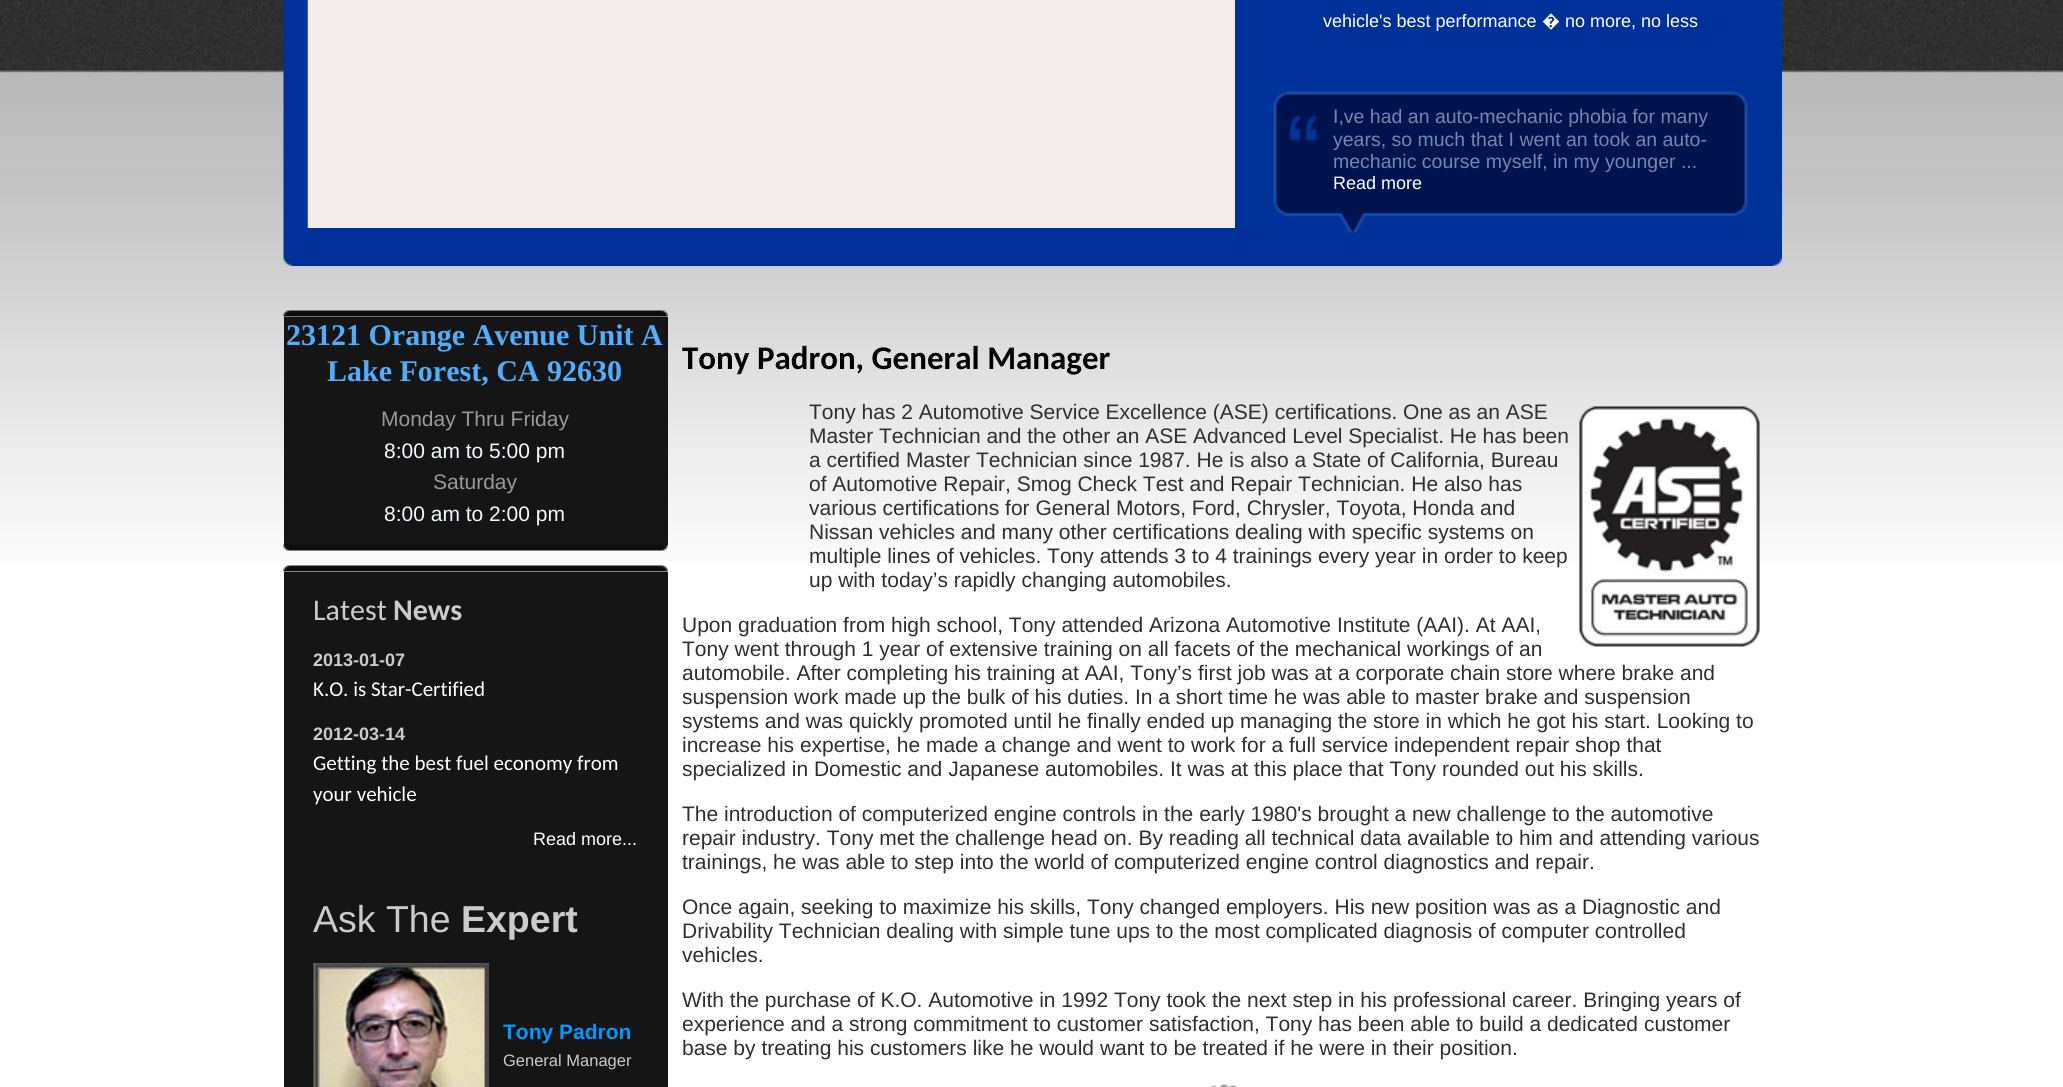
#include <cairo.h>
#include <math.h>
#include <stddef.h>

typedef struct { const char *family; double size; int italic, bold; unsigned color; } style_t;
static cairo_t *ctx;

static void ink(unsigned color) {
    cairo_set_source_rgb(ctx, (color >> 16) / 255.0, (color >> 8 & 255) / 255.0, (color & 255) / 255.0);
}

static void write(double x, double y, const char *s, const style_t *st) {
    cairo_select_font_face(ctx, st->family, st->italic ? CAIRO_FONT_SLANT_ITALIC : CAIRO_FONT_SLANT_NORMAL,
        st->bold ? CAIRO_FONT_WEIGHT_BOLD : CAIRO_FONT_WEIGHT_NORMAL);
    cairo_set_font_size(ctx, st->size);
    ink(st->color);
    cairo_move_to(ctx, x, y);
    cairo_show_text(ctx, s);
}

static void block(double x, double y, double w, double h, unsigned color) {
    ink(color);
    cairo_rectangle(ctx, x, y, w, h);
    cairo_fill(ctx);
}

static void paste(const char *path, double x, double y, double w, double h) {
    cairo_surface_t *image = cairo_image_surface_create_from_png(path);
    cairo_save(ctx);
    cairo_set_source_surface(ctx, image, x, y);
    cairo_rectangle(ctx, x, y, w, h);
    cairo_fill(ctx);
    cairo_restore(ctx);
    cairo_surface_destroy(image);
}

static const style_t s1 = {"Liberation Sans", 18, 0, 0, 0xffffff};
static const style_t s2 = {"Noto Sans", 18, 0, 0, 0xffffff};
static const style_t s3 = {"Liberation Sans", 19.5, 0, 0, 0x7287b0};
static const style_t s4 = {"Liberation Serif", 30, 0, 1, 0x4faefe};
static const style_t s5 = {"Liberation Sans", 21, 0, 0, 0x999999};
static const style_t s6 = {"Liberation Sans", 21, 0, 0, 0xf6f9fd};
static const style_t s7 = {"Carlito", 30, 0, 0, 0xcbcbcb};
static const style_t s8 = {"Carlito", 30, 0, 1, 0xcbcbcb};
static const style_t s9 = {"Liberation Sans", 18, 0, 1, 0xcbcbcb};
static const style_t s10 = {"Carlito", 21, 0, 0, 0xffffff};
static const style_t s11 = {"Liberation Sans", 37.5, 0, 0, 0xcbcbcb};
static const style_t s12 = {"Liberation Sans", 37.5, 0, 1, 0xcbcbcb};
static const style_t s13 = {"Liberation Sans", 21, 0, 1, 0x0099ff};
static const style_t s14 = {"Liberation Sans", 16.5, 0, 0, 0xcbcbcb};
static const style_t s15 = {"Carlito", 33, 0, 1, 0x000000};
static const style_t s16 = {"Liberation Sans", 21, 0, 0, 0x2f2f2f};

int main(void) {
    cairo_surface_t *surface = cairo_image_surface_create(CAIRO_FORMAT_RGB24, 2063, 1087);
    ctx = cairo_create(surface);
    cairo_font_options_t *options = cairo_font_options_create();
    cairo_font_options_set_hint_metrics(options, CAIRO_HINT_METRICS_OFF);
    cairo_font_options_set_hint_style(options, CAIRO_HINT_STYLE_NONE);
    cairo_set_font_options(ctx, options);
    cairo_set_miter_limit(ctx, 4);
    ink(0xffffff);
    cairo_paint(ctx);
    paste("pic1.png", 0, 0, 2063, 561);
    paste("pic2.png", 283, 0, 9, 266);
    block(292, 0, 1481, 266, 0x00309a);
    block(307, 0, 1, 228, 0x3d60ae);
    block(308, 0, 927, 228, 0xf2edeb);
    write(1323, 27, "vehicle's best performance", &s1);
    write(1542, 27, "�", &s2);
    write(1565, 27, "no more, no less", &s1);
    block(1250, 83, 523, 150, 0x003399);
    paste("pic3.png", 1273, 91, 475, 142);
    paste("pic4.png", 1289, 115, 29, 27);
    write(1333, 123, "I,ve had an auto-mechanic phobia for many", &s3);
    write(1333, 146, "years, so much that I went an took an auto-", &s3);
    write(1333, 168, "mechanic course myself, in my younger ...", &s3);
    write(1333, 189, "Read more", &s1);
    paste("pic5.png", 1773, 0, 9, 266);
    paste("pic6.png", 283, 310, 385, 7);
    block(284, 317, 384, 228, 0x151515);
    write(286, 345, "23121 Orange Avenue Unit A", &s4);
    write(327, 381, "Lake Forest, CA 92630", &s4);
    write(381, 426, "Monday Thru Friday", &s5);
    write(384, 458, "8:00 am to 5:00 pm", &s6);
    write(433, 489, "Saturday", &s5);
    write(384, 521, "8:00 am to 2:00 pm", &s6);
    paste("pic7.png", 283, 544, 385, 7);
    paste("pic8.png", 283, 565, 385, 7);
    block(284, 572, 384, 515, 0x151515);
    write(313, 620, "Latest", &s7);
    write(393, 620, "News", &s8);
    write(313, 666, "2013-01-07", &s9);
    write(313, 696, "K.O. is Star-Certified", &s10);
    write(313, 740, "2012-03-14", &s9);
    write(313, 770, "Getting the best fuel economy from", &s10);
    write(313, 801, "your vehicle", &s10);
    write(533, 845, "Read more...", &s1);
    write(313, 932, "Ask The", &s11);
    write(461, 932, "Expert", &s12);
    paste("pic9.png", 313, 963, 176, 124);
    write(503, 1039, "Tony Padron", &s13);
    write(503, 1066, "General Manager", &s14);
    write(682, 369, "Tony Padron, General Manager", &s15);
    write(809, 419, "Tony has 2 Automotive Service Excellence (ASE) certifications. One as an ASE", &s16);
    paste("pic10.png", 1579, 406, 181, 241);
    write(809, 443, "Master Technician and the other an ASE Advanced Level Specialist. He has been", &s16);
    write(809, 467, "a certified Master Technician since 1987. He is also a State of California, Bureau", &s16);
    write(809, 491, "of Automotive Repair, Smog Check Test and Repair Technician. He also has", &s16);
    write(809, 515, "various certifications for General Motors, Ford, Chrysler, Toyota, Honda and", &s16);
    write(809, 539, "Nissan vehicles and many other certifications dealing with specific systems on", &s16);
    write(809, 563, "multiple lines of vehicles. Tony attends 3 to 4 trainings every year in order to keep", &s16);
    write(809, 587, "up with today’s rapidly changing automobiles.", &s16);
    write(682, 632, "Upon graduation from high school, Tony attended Arizona Automotive Institute (AAI). At AAI,", &s16);
    write(682, 656, "Tony went through 1 year of extensive training on all facets of the mechanical workings of an", &s16);
    write(682, 680, "automobile. After completing his training at AAI, Tony’s first job was at a corporate chain store where brake and", &s16);
    write(682, 704, "suspension work made up the bulk of his duties. In a short time he was able to master brake and suspension", &s16);
    write(682, 728, "systems and was quickly promoted until he finally ended up managing the store in which he got his start. Looking to", &s16);
    write(682, 752, "increase his expertise, he made a change and went to work for a full service independent repair shop that", &s16);
    write(682, 776, "specialized in Domestic and Japanese automobiles. It was at this place that Tony rounded out his skills.", &s16);
    write(682, 821, "The introduction of computerized engine controls in the early 1980's brought a new challenge to the automotive", &s16);
    write(682, 845, "repair industry. Tony met the challenge head on. By reading all technical data available to him and attending various", &s16);
    write(682, 869, "trainings, he was able to step into the world of computerized engine control diagnostics and repair.", &s16);
    write(682, 914, "Once again, seeking to maximize his skills, Tony changed employers. His new position was as a Diagnostic and", &s16);
    write(682, 938, "Drivability Technician dealing with simple tune ups to the most complicated diagnosis of computer controlled", &s16);
    write(682, 962, "vehicles.", &s16);
    write(682, 1007, "With the purchase of K.O. Automotive in 1992 Tony took the next step in his professional career. Bringing years of", &s16);
    write(682, 1031, "experience and a strong commitment to customer satisfaction, Tony has been able to build a dedicated customer", &s16);
    write(682, 1055, "base by treating his customers like he would want to be treated if he were in their position.", &s16);
    paste("pic11.png", 1210, 1084, 28, 3);
    cairo_surface_write_to_png(surface, "screenshot.png");
    cairo_font_options_destroy(options);
    cairo_destroy(ctx);
    cairo_surface_destroy(surface);
    return 0;
}
